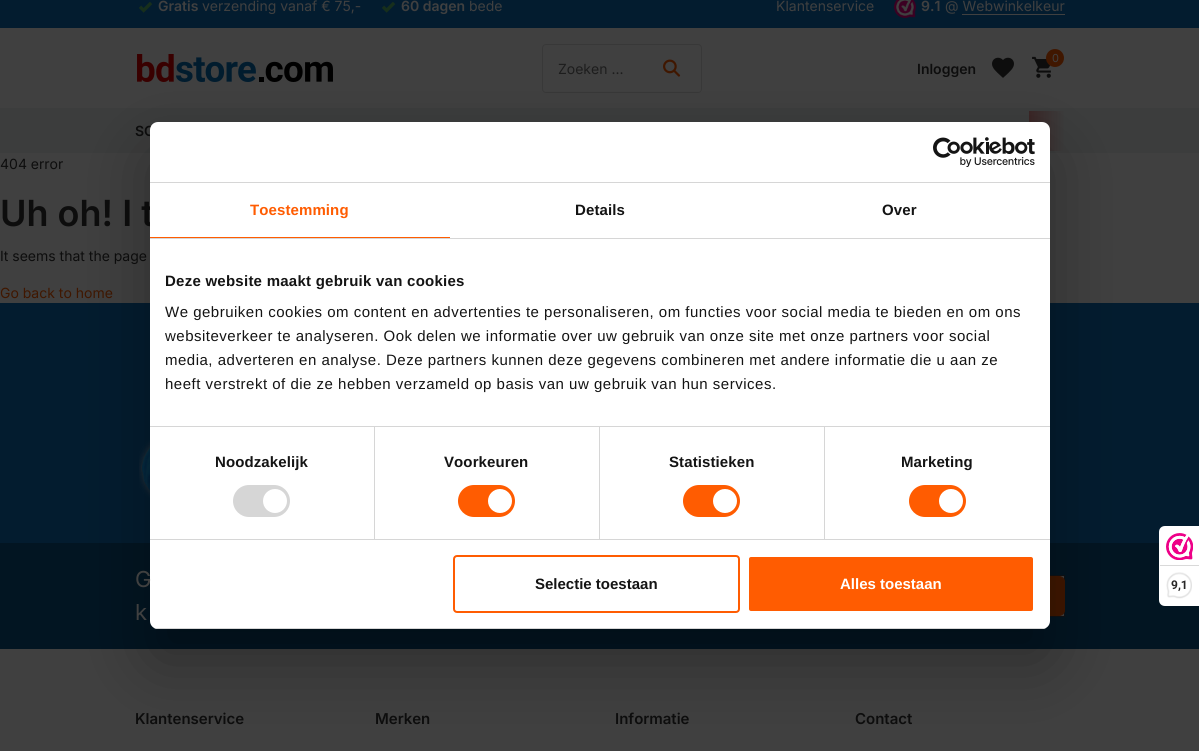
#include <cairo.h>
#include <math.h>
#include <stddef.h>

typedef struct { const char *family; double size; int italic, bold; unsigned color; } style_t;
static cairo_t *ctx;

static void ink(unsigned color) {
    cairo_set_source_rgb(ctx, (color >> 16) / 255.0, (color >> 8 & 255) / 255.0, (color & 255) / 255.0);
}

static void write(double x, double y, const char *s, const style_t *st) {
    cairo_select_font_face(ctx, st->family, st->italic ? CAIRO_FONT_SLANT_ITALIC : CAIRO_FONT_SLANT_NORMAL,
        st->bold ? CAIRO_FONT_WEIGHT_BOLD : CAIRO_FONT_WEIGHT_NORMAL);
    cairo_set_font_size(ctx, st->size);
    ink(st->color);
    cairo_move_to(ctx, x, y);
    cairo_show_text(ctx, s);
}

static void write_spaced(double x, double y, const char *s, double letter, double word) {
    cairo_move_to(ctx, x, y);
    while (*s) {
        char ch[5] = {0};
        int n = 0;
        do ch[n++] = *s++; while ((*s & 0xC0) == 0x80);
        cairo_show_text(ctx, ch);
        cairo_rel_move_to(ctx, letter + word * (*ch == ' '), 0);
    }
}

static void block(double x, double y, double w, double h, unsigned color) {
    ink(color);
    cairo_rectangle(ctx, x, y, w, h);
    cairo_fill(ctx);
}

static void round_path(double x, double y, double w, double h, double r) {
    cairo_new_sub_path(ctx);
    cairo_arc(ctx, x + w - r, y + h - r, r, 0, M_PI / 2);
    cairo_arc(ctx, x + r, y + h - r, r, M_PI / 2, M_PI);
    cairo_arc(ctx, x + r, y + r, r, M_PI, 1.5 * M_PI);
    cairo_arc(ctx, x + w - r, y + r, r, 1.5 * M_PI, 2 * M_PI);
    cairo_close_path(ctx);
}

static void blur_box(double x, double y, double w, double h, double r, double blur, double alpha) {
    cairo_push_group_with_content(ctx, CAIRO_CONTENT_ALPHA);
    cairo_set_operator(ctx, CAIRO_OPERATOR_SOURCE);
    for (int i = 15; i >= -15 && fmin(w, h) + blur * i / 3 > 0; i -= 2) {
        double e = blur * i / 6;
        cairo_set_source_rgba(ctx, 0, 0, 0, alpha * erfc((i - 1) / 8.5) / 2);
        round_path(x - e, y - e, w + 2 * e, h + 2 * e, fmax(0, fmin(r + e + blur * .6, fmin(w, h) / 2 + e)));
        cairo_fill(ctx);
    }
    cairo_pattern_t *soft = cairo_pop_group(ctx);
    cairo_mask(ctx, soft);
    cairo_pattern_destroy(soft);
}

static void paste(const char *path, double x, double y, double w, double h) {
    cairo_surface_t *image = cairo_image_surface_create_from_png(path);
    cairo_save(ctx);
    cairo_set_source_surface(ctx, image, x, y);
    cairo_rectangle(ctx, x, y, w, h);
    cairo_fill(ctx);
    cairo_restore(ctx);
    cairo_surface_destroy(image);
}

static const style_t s1 = {"Inter SemiBold", 14, 0, 0, 0x404040};
static const style_t s2 = {"Inter", 14, 0, 0, 0x404040};
static const style_t s3 = {"Inter", 14, 0, 0, 0x1d1d1d};
static const style_t s4 = {"Inter SemiBold", 14, 0, 0, 0x0d0d0d};
static const style_t s5 = {"Inter", 11, 0, 0, 0x404040};
static const style_t s6 = {"Inter", 14, 0, 0, 0x0d0d0d};
static const style_t s7 = {"Inter SemiBold", 36, 0, 0, 0x0d0d0d};
static const style_t s8 = {"Inter", 14, 0, 0, 0x401700};
static const style_t s9 = {"Liberation Sans", 15, 0, 1, 0x141414};
static const style_t s10 = {"Liberation Sans", 15, 0, 1, 0xffffff};
static const style_t s11 = {"Inter", 22, 0, 0, 0x404040};
static const style_t s12 = {"Inter SemiBold", 15, 0, 0, 0x0d0d0d};
static const style_t s13 = {"Roboto", 12, 0, 1, 0x272626};

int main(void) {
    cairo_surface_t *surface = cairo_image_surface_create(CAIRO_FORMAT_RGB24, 1199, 751);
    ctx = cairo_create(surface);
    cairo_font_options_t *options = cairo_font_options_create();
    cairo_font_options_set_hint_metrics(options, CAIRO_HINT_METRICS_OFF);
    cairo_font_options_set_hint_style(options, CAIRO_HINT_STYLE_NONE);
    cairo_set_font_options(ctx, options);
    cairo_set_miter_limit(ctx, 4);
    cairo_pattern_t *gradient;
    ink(0x404040);
    cairo_paint(ctx);
    block(0, 0, 1199, 28, 0x031c2f);
    paste("pic1.png", 139, 2, 14, 11);
    write(158, 11, "Gratis", &s1);
    write(202, 11, "verzending vanaf € 75,-", &s2);
    paste("pic1.png", 382, 2, 14, 11);
    write(401, 11, "60 dagen", &s1);
    write(469, 11, "bede", &s2);
    write(776, 11, "Klantenservice", &s2);
    paste("pic2.png", 894, 0, 22, 18);
    write(921, 11, "9.1", &s1);
    write(945, 11, "@ Webwinkelkeur", &s2);
    block(962, 14, 103, 1, 0x404040);
    paste("pic3.png", 137, 54, 196, 28);
    round_path(542.5, 44.5, 159, 48, 3.5);
    ink(0x383838);
    cairo_set_line_width(ctx, 1);
    cairo_stroke(ctx);
    write(558, 74, "Zoeken ...", &s3);
    paste("pic4.png", 663, 59, 18, 18);
    write(917, 74, "Inloggen", &s4);
    paste("pic5.png", 992, 57, 22, 21);
    paste("pic6.png", 1032, 56, 19, 22);
    ink(0x401700);
    cairo_arc(ctx, 1055, 58, 9, 0, 2 * M_PI);
    cairo_fill(ctx);
    write(1052, 62, "0", &s5);
    block(0, 108, 1199, 45, 0x3c3d3d);
    write(135, 136, "SC", &s4);
    block(1029, 111, 35, 40, 0x390100);
    gradient = cairo_pattern_create_linear(1065, 131, 972, 131);
    cairo_pattern_add_color_stop_rgba(gradient, 0, 0.235, 0.239, 0.239, 1);
    cairo_pattern_add_color_stop_rgba(gradient, 1, 0.235, 0.239, 0.239, 0);
    cairo_set_source(ctx, gradient);
    cairo_pattern_destroy(gradient);
    cairo_rectangle(ctx, 1029, 111, 35, 40);
    cairo_fill(ctx);
    write(0, 169, "404 error", &s6);
    write(0, 226, "Uh oh! I t", &s7);
    write(0, 261, "It seems that the page", &s6);
    write(0, 298, "Go back to home", &s8);
    block(0, 303, 1199, 240, 0x031c2f);
    paste("pic8.png", 139, 440, 11, 58);
    block(0, 543, 1199, 106, 0x021522);
    block(1059, 576, 5, 40, 0x404040);
    cairo_rectangle(ctx, 665.5, 575.5, 399, 41);
    ink(0x101215);
    cairo_stroke(ctx);
    ink(0x401700);
    cairo_new_path(ctx);
    cairo_move_to(ctx, 937.5, 576.5);
    cairo_line_to(ctx, 1059, 576.5);
    cairo_curve_to(ctx, 1062, 576.5, 1064.5, 579, 1064.5, 582);
    cairo_line_to(ctx, 1064.5, 610);
    cairo_curve_to(ctx, 1064.5, 613, 1062, 615.5, 1059, 615.5);
    cairo_line_to(ctx, 937.5, 615.5);
    cairo_close_path(ctx);
    cairo_fill_preserve(ctx);
    cairo_stroke(ctx);
    ink(0x000000);
    blur_box(150, 154, 900, 507, 8, 34, 0.3);
    ink(0xffffff);
    round_path(150, 122, 900, 507, 8);
    cairo_fill(ctx);
    block(150, 182, 900, 1, 0xd6d6d6);
    paste("pic7.png", 933, 137, 102, 30);
    block(150, 238, 900, 1, 0xd6d6d6);
    block(150, 237, 300, 1, 0xff5c01);
    cairo_select_font_face(ctx, "Liberation Sans", CAIRO_FONT_SLANT_NORMAL, CAIRO_FONT_WEIGHT_BOLD);
    cairo_set_font_size(ctx, 15);
    write_spaced(250, 215, "Toestemming", 0.1, 0);
    ink(0x141414);
    write_spaced(575, 215, "Details", 0.1, 0);
    write_spaced(882, 215, "Over", 0.1, 0);
    block(150, 426, 900, 1, 0xd6d6d6);
    ink(0x141414);
    write_spaced(165, 286, "Deze website maakt gebruik van cookies", 0.25, 0);
    cairo_select_font_face(ctx, "Liberation Sans", CAIRO_FONT_SLANT_NORMAL, CAIRO_FONT_WEIGHT_NORMAL);
    write_spaced(165, 317, "We gebruiken cookies om content en advertenties te personaliseren, om functies voor social media te bieden en om ons", 0.5, 0);
    write_spaced(165, 341, "websiteverkeer te analyseren. Ook delen we informatie over uw gebruik van onze site met onze partners voor social", 0.5, 0);
    write_spaced(165, 365, "media, adverteren en analyse. Deze partners kunnen deze gegevens combineren met andere informatie die u aan ze", 0.5, 0);
    write_spaced(165, 389, "heeft verstrekt of die ze hebben verzameld op basis van uw gebruik van hun services.", 0.5, 0);
    block(150, 539, 900, 1, 0xd6d6d6);
    block(374, 427, 1, 112, 0xd6d6d6);
    cairo_select_font_face(ctx, "Liberation Sans", CAIRO_FONT_SLANT_NORMAL, CAIRO_FONT_WEIGHT_BOLD);
    ink(0x141414);
    write_spaced(215, 467, "Noodzakelijk", 0.1, 0);
    ink(0xd6d6d6);
    round_path(233, 485, 57, 32, 16);
    cairo_fill(ctx);
    ink(0xffffff);
    cairo_arc(ctx, 275, 501, 12, 0, 2 * M_PI);
    cairo_fill(ctx);
    block(599, 427, 1, 112, 0xd6d6d6);
    ink(0x141414);
    write_spaced(444, 467, "Voorkeuren", 0.1, 0);
    ink(0xff5c01);
    round_path(458, 485, 57, 32, 16);
    cairo_fill(ctx);
    ink(0xffffff);
    cairo_arc(ctx, 500, 501, 12, 0, 2 * M_PI);
    cairo_fill(ctx);
    block(824, 427, 1, 112, 0xd6d6d6);
    ink(0x141414);
    write_spaced(669, 467, "Statistieken", 0.1, 0);
    ink(0xff5c01);
    round_path(683, 485, 57, 32, 16);
    cairo_fill(ctx);
    ink(0xffffff);
    cairo_arc(ctx, 725, 501, 12, 0, 2 * M_PI);
    cairo_fill(ctx);
    ink(0x141414);
    write_spaced(901, 467, "Marketing", 0.1, 0);
    ink(0xff5c01);
    round_path(909, 485, 57, 32, 16);
    cairo_fill(ctx);
    ink(0xffffff);
    cairo_arc(ctx, 951, 501, 12, 0, 2 * M_PI);
    cairo_fill(ctx);
    cairo_save(ctx);
    round_path(150, 122, 900, 507, 8);
    cairo_clip(ctx);
    block(150, 628, 900, 1, 0xd6d6d6);
    cairo_restore(ctx);
    round_path(454, 556, 285, 56, 3);
    ink(0xff5c01);
    cairo_set_line_width(ctx, 2);
    cairo_stroke(ctx);
    write(535, 589, "Selectie toestaan", &s9);
    ink(0xff5c01);
    round_path(748, 556, 286, 56, 3);
    cairo_fill_preserve(ctx);
    ink(0xffffff);
    cairo_stroke(ctx);
    write(840, 589, "Alles toestaan", &s10);
    write(135, 587, "G", &s11);
    write(135, 620, "k", &s11);
    write(135, 724, "Klantenservice", &s12);
    write(375, 724, "Merken", &s12);
    write(615, 724, "Informatie", &s12);
    write(855, 724, "Contact", &s12);
    ink(0xffffff);
    cairo_new_path(ctx);
    cairo_move_to(ctx, 1165, 526);
    cairo_line_to(ctx, 1199, 526);
    cairo_line_to(ctx, 1199, 606);
    cairo_line_to(ctx, 1165, 606);
    cairo_curve_to(ctx, 1161.5, 606, 1159, 603.5, 1159, 600);
    cairo_line_to(ctx, 1159, 532);
    cairo_curve_to(ctx, 1159, 528.5, 1161.5, 526, 1165, 526);
    cairo_close_path(ctx);
    cairo_fill(ctx);
    paste("pic9.png", 1166, 533, 27, 27);
    block(1160, 565, 39, 1, 0xd9d9d9);
    paste("pic10.png", 1166, 572, 26, 27);
    write(1171, 589, "9,1", &s13);
    cairo_surface_write_to_png(surface, "screenshot.png");
    cairo_font_options_destroy(options);
    cairo_destroy(ctx);
    cairo_surface_destroy(surface);
    return 0;
}
